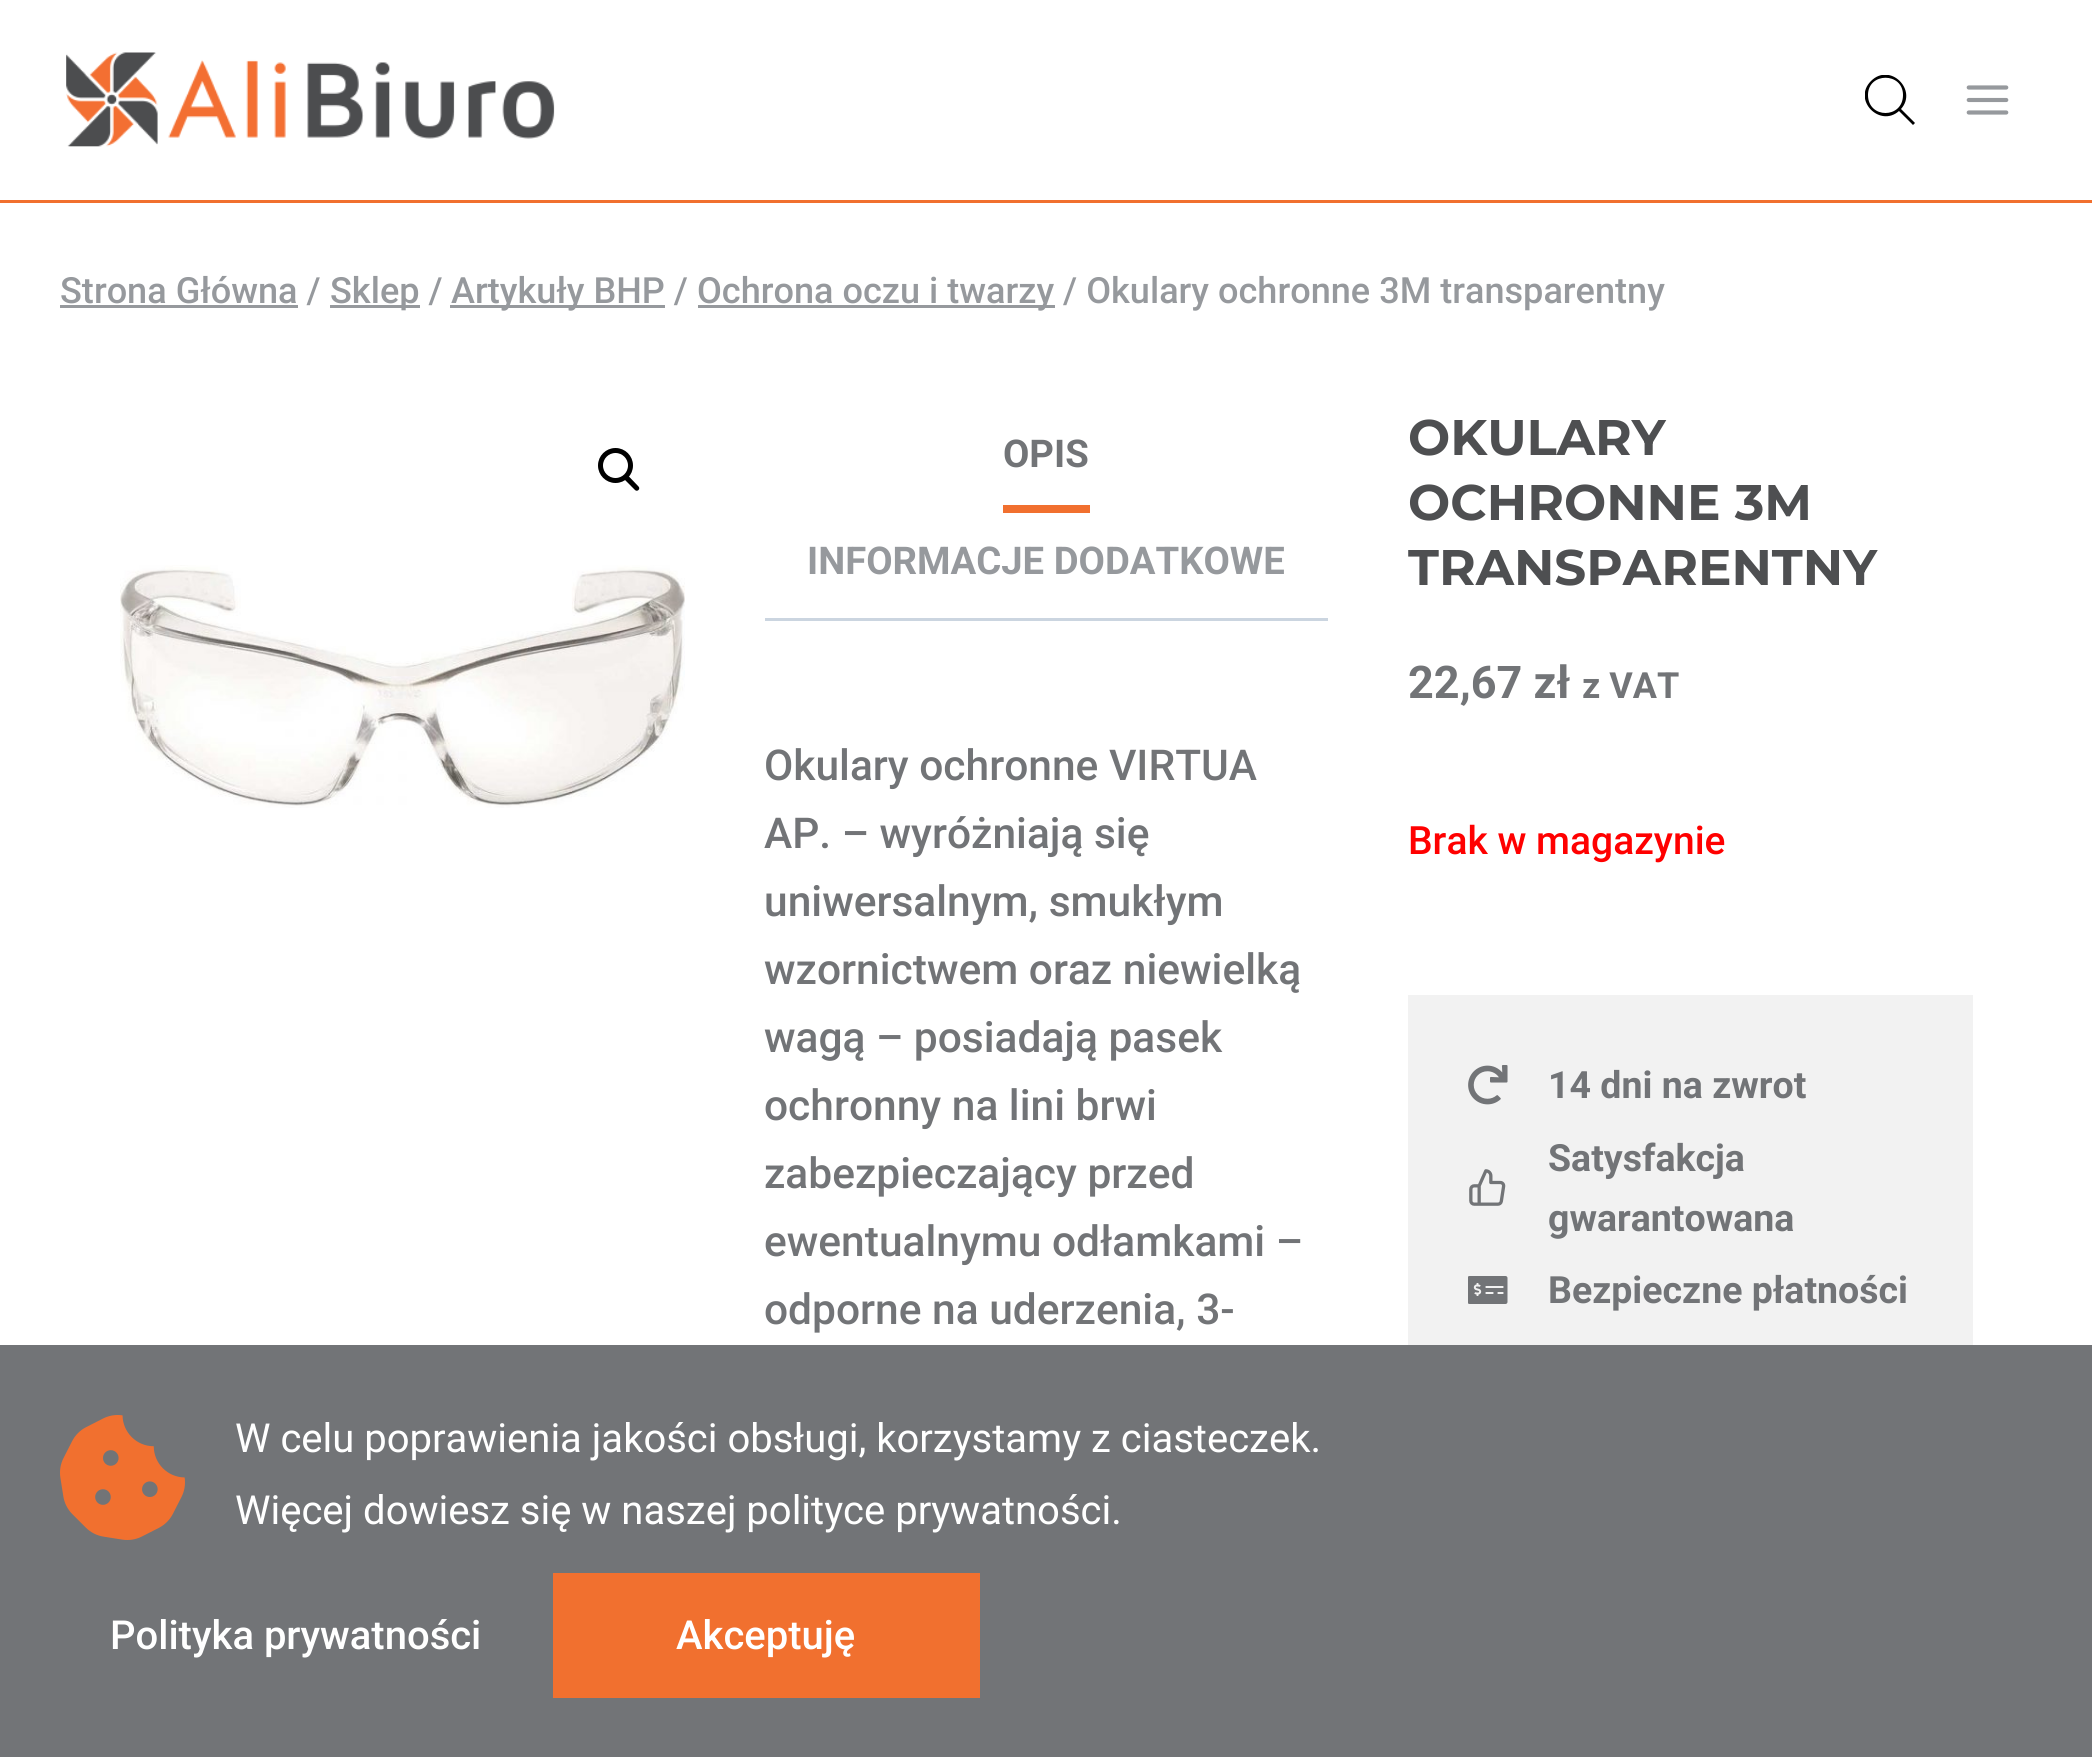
#include <cairo.h>
#include <math.h>
#include <stddef.h>

typedef struct { const char *family; double size; int italic, bold; unsigned color; } style_t;
static cairo_t *ctx;

static void ink(unsigned color) {
    cairo_set_source_rgb(ctx, (color >> 16) / 255.0, (color >> 8 & 255) / 255.0, (color & 255) / 255.0);
}

static void write(double x, double y, const char *s, const style_t *st) {
    cairo_select_font_face(ctx, st->family, st->italic ? CAIRO_FONT_SLANT_ITALIC : CAIRO_FONT_SLANT_NORMAL,
        st->bold ? CAIRO_FONT_WEIGHT_BOLD : CAIRO_FONT_WEIGHT_NORMAL);
    cairo_set_font_size(ctx, st->size);
    ink(st->color);
    cairo_move_to(ctx, x, y);
    cairo_show_text(ctx, s);
}

static void block(double x, double y, double w, double h, unsigned color) {
    ink(color);
    cairo_rectangle(ctx, x, y, w, h);
    cairo_fill(ctx);
}

static void paste(const char *path, double x, double y, double w, double h) {
    cairo_surface_t *image = cairo_image_surface_create_from_png(path);
    cairo_save(ctx);
    cairo_set_source_surface(ctx, image, x, y);
    cairo_rectangle(ctx, x, y, w, h);
    cairo_fill(ctx);
    cairo_restore(ctx);
    cairo_surface_destroy(image);
}

static const style_t s1 = {"Roboto Medium", 36.1, 0, 0, 0x96999d};
static const style_t s2 = {"Roboto", 38.25, 0, 1, 0x727477};
static const style_t s3 = {"Roboto", 38.25, 0, 1, 0x96999d};
static const style_t s4 = {"Roboto Medium", 42.5, 0, 0, 0x727477};
static const style_t s5 = {"Montserrat Thin", 50, 0, 0, 0x4e4f51};
static const style_t s6 = {"Roboto", 45, 0, 1, 0x727477};
static const style_t s7 = {"Roboto", 36, 0, 1, 0x727477};
static const style_t s8 = {"Roboto Medium", 39, 0, 0, 0xff0000};
static const style_t s9 = {"Roboto", 37.5, 0, 1, 0x727477};
static const style_t s10 = {"Roboto", 40, 0, 0, 0xffffff};
static const style_t s11 = {"Roboto Medium", 40, 0, 0, 0xffffff};

int main(void) {
    cairo_surface_t *surface = cairo_image_surface_create(CAIRO_FORMAT_RGB24, 2092, 1757);
    ctx = cairo_create(surface);
    cairo_font_options_t *options = cairo_font_options_create();
    cairo_font_options_set_hint_metrics(options, CAIRO_HINT_METRICS_OFF);
    cairo_font_options_set_hint_style(options, CAIRO_HINT_STYLE_NONE);
    cairo_set_font_options(ctx, options);
    cairo_set_miter_limit(ctx, 4);
    ink(0xffffff);
    cairo_paint(ctx);
    block(0, 200, 2092, 3, 0xf1702f);
    paste("pic1.png", 66, 52, 489, 95);
    cairo_save(ctx);
    cairo_rectangle(ctx, 1865, 75, 50, 50);
    cairo_clip(ctx);
    ink(0x000000);
    cairo_new_path(ctx);
    cairo_move_to(ctx, 1915, 123);
    cairo_line_to(ctx, 1901, 109);
    cairo_curve_to(ctx, 1918, 90, 1890, 62, 1871, 81);
    cairo_curve_to(ctx, 1852, 100, 1880, 128, 1899, 111);
    cairo_line_to(ctx, 1913, 125);
    cairo_close_path(ctx);
    cairo_move_to(ctx, 1868, 95);
    cairo_curve_to(ctx, 1868, 72, 1903, 72, 1903, 95);
    cairo_curve_to(ctx, 1903, 119, 1868, 119, 1868, 95);
    cairo_close_path(ctx);
    cairo_fill(ctx);
    cairo_restore(ctx);
    paste("pic2.png", 1966, 85, 43, 30);
    block(60, 305, 238, 3, 0x96999d);
    write(60, 303, "Strona Główna /", &s1);
    block(330, 305, 90, 3, 0x96999d);
    write(330, 303, "Sklep /", &s1);
    block(450, 305, 215, 3, 0x96999d);
    write(451, 303, "Artykuły BHP /", &s1);
    block(698, 305, 357, 3, 0x96999d);
    write(697, 303, "Ochrona oczu i twarzy / Okulary ochronne 3M transparentny", &s1);
    cairo_new_path(ctx);
    cairo_arc(ctx, 615.5, 465.5, 15, 0, 2 * M_PI);
    ink(0x000000);
    cairo_set_line_width(ctx, 5);
    cairo_stroke(ctx);
    cairo_new_path(ctx);
    cairo_move_to(ctx, 624.5, 475.5);
    cairo_curve_to(ctx, 625.5, 475, 627, 475, 628, 475.5);
    cairo_line_to(ctx, 638.5, 486.5);
    cairo_curve_to(ctx, 639.5, 487.5, 639.5, 489, 638.5, 490);
    cairo_curve_to(ctx, 637.5, 491, 636, 491, 635, 490);
    cairo_line_to(ctx, 624.5, 479.5);
    cairo_curve_to(ctx, 623.5, 478.5, 623.5, 476.5, 624.5, 475.5);
    cairo_close_path(ctx);
    cairo_fill(ctx);
    paste("pic3.png", 120, 565, 565, 243);
    block(1003, 505, 87, 8, 0xf1702f);
    write(1003, 467, "OPIS", &s2);
    write(807, 574, "INFORMACJE DODATKOWE", &s3);
    block(765, 618, 563, 3, 0xcbd5e0);
    write(764, 780, "Okulary ochronne VIRTUA", &s4);
    write(764, 848, "AP. – wyróżniają się", &s4);
    write(764, 916, "uniwersalnym, smukłym", &s4);
    write(764, 984, "wzornictwem oraz niewielką", &s4);
    write(764, 1052, "wagą – posiadają pasek", &s4);
    write(764, 1120, "ochronny na lini brwi", &s4);
    write(764, 1188, "zabezpieczający przed", &s4);
    write(764, 1256, "ewentualnymu odłamkami –", &s4);
    write(764, 1324, "odporne na uderzenia, 3-", &s4);
    write(1408, 455, "OKULARY", &s5);
    write(1408, 520, "OCHRONNE 3M", &s5);
    write(1408, 585, "TRANSPARENTNY", &s5);
    write(1408, 698, "22,67 zł", &s6);
    write(1582, 698, "z VAT", &s7);
    write(1408, 854, "Brak w magazynie", &s8);
    block(1408, 995, 565, 350, 0xf2f2f2);
    paste("pic4.png", 1468, 1065, 40, 40);
    write(1548, 1098, "14 dni na zwrot", &s9);
    paste("pic5.png", 1469, 1169, 37, 37);
    write(1548, 1171, "Satysfakcja", &s9);
    write(1548, 1231, "gwarantowana", &s9);
    paste("pic6.png", 1468, 1276, 40, 28);
    write(1548, 1303, "Bezpieczne płatności", &s9);
    block(0, 1345, 2092, 412, 0x727477);
    paste("pic7.png", 60, 1415, 125, 125);
    write(235, 1452, "W celu poprawienia jakości obsługi, korzystamy z ciasteczek.", &s10);
    write(235, 1524, "Więcej dowiesz się w naszej polityce prywatności.", &s10);
    write(110, 1649, "Polityka prywatności", &s11);
    block(553, 1573, 427, 125, 0xf1702f);
    write(676, 1649, "Akceptuję", &s11);
    cairo_surface_write_to_png(surface, "screenshot.png");
    cairo_font_options_destroy(options);
    cairo_destroy(ctx);
    cairo_surface_destroy(surface);
    return 0;
}
